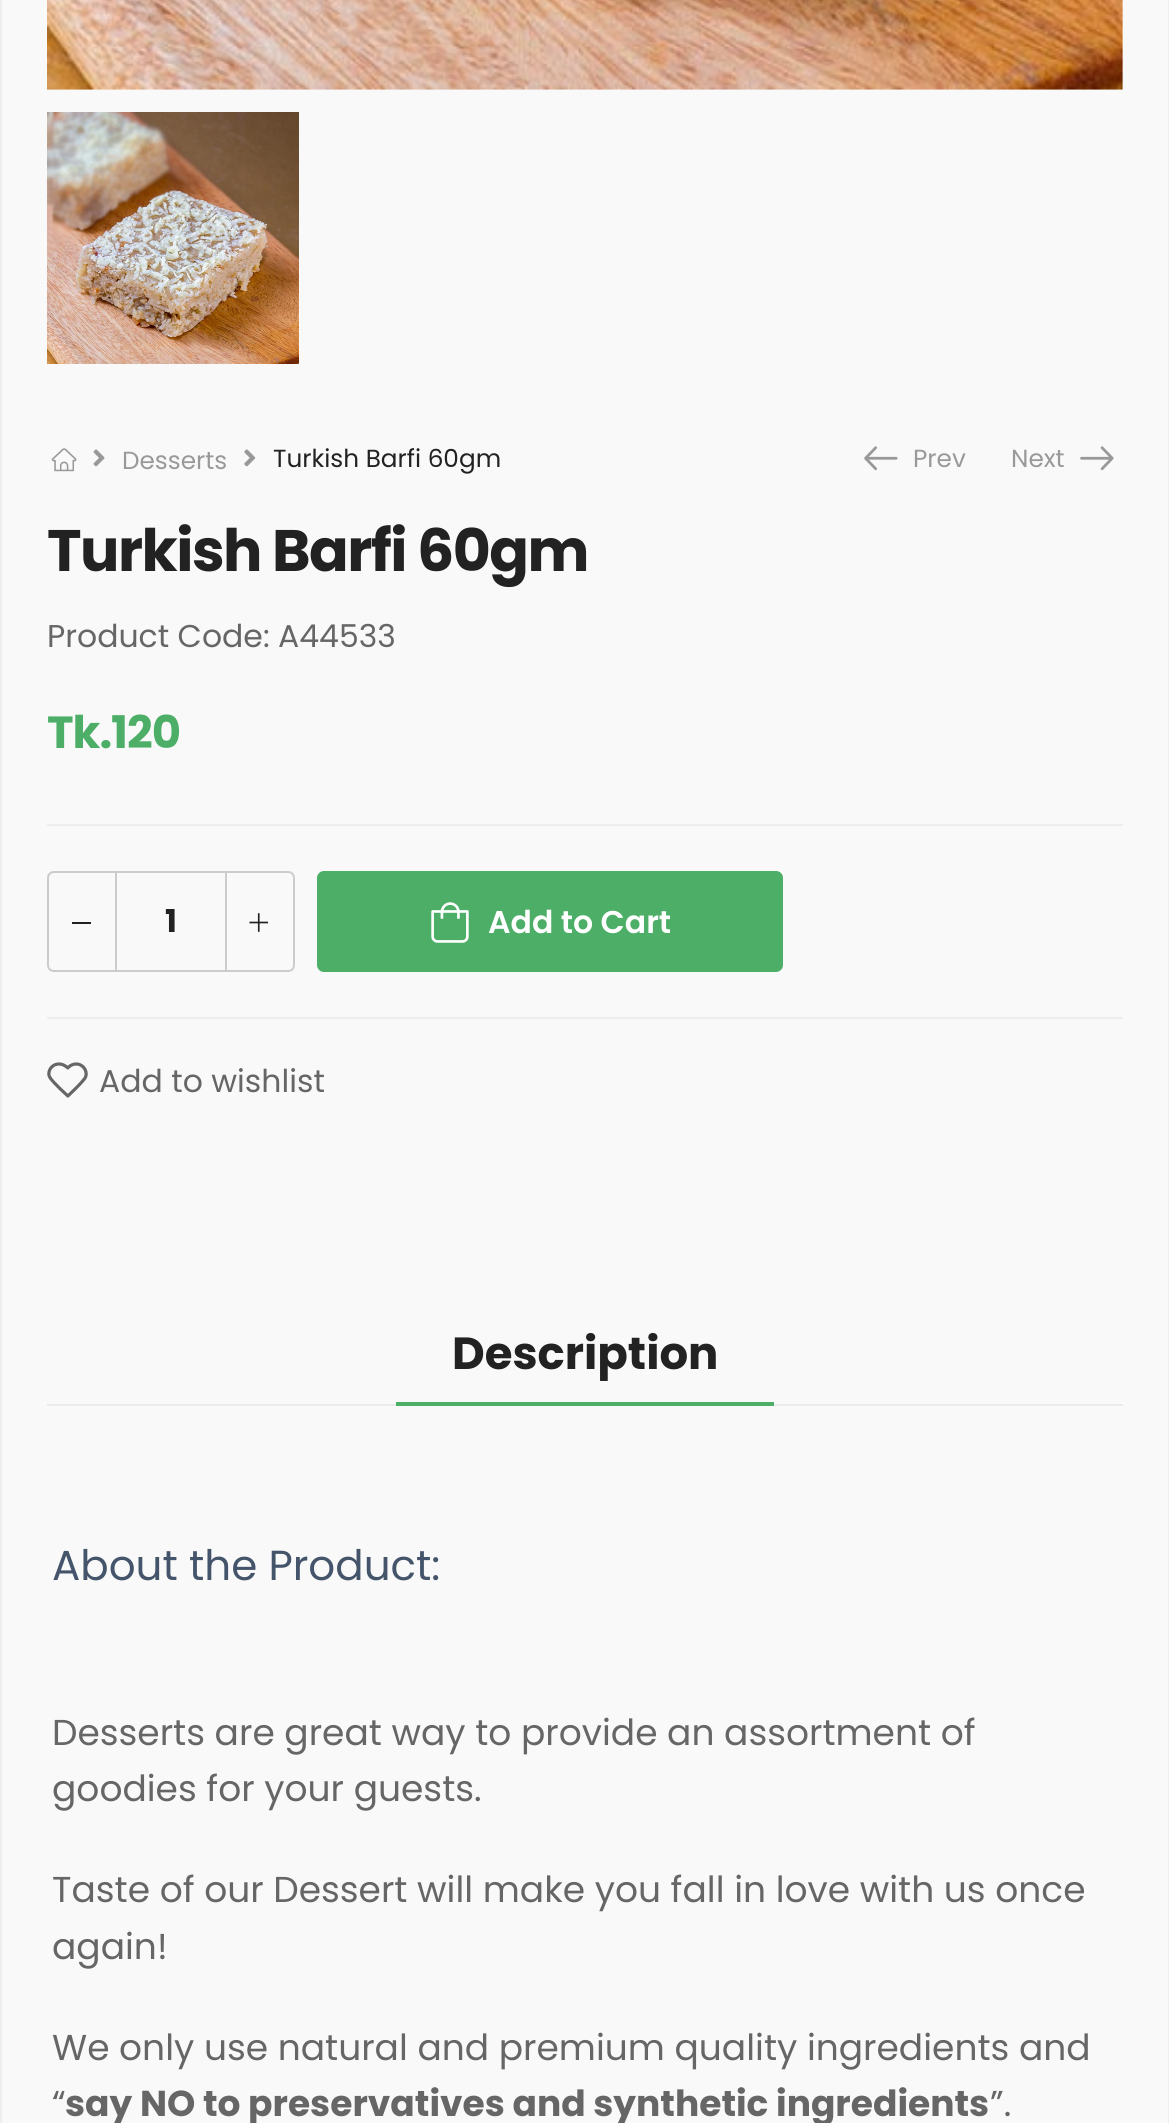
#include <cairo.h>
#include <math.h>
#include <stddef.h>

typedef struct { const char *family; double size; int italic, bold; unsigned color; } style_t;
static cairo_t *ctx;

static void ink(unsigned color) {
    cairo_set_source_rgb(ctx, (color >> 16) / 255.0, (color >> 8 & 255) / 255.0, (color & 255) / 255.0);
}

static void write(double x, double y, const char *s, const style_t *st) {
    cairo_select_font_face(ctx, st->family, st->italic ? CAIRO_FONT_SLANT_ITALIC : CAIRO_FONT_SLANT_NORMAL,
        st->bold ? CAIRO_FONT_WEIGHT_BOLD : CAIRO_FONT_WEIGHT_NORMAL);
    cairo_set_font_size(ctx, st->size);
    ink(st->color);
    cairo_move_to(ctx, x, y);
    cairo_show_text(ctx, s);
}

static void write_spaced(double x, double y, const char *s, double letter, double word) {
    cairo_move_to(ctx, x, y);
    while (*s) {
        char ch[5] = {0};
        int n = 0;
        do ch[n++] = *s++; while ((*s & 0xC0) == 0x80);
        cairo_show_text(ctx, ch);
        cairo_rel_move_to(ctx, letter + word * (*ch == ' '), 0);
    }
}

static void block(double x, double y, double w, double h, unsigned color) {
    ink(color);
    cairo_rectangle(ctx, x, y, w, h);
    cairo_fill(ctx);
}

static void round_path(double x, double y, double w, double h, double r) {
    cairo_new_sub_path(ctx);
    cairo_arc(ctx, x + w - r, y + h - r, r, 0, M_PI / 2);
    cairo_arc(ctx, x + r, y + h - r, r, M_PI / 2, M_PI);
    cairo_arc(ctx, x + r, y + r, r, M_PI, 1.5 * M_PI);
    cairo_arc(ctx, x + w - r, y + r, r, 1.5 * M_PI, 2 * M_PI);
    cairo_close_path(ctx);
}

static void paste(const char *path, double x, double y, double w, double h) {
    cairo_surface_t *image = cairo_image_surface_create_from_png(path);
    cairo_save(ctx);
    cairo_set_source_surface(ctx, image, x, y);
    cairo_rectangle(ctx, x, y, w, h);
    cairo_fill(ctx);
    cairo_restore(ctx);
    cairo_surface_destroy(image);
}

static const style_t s1 = {"Poppins", 24.75, 0, 0, 0x999999};
static const style_t s2 = {"Poppins", 24.75, 0, 0, 0x222222};
static const style_t s3 = {"Poppins", 31.5, 0, 0, 0x666666};
static const style_t s4 = {"Poppins", 31.5, 0, 1, 0x222222};
static const style_t s5 = {"Poppins SemiBold", 31.5, 0, 0, 0xffffff};
static const style_t s6 = {"Poppins", 45, 0, 1, 0x222222};
static const style_t s7 = {"Poppins", 42, 0, 0, 0x44546a};
static const style_t s8 = {"Poppins", 36, 0, 0, 0x666666};
static const style_t s9 = {"Poppins", 36, 0, 1, 0x666666};

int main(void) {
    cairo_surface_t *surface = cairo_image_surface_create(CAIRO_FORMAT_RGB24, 1169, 2123);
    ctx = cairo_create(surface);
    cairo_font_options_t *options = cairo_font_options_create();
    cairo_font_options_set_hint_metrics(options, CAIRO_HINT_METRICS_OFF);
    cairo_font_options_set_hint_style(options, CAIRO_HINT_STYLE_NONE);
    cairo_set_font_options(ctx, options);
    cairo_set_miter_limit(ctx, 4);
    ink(0xf9f9f9);
    cairo_paint(ctx);
    cairo_rectangle(ctx, 1, -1, 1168, 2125);
    ink(0xeeeeee);
    cairo_stroke(ctx);
    paste("pic1.png", 47, 0, 1076, 90);
    paste("pic2.png", 47, 112, 252, 252);
    paste("pic3.png", 51, 448, 26, 24);
    paste("pic4.png", 93, 449, 12, 18);
    write(122, 469, "Desserts", &s1);
    paste("pic5.png", 244, 449, 12, 18);
    write(273, 467, "Turkish Barfi 60gm", &s2);
    paste("pic6.png", 864, 446, 34, 25);
    write(913, 467, "Prev", &s1);
    write(1011, 467, "Next", &s1);
    paste("pic7.png", 1080, 446, 34, 25);
    cairo_select_font_face(ctx, "Poppins", CAIRO_FONT_SLANT_NORMAL, CAIRO_FONT_WEIGHT_BOLD);
    cairo_set_font_size(ctx, 58.5);
    ink(0x222222);
    write_spaced(47, 571, "Turkish Barfi 60gm", -1.5, 0);
    write(47, 647, "Product Code: A44533", &s3);
    cairo_select_font_face(ctx, "Poppins", CAIRO_FONT_SLANT_NORMAL, CAIRO_FONT_WEIGHT_BOLD);
    cairo_set_font_size(ctx, 45);
    ink(0x4dae67);
    write_spaced(47, 748, "Tk.120", -1, 0);
    block(47, 824, 1076, 2, 0xeeeeee);
    cairo_new_path(ctx);
    cairo_move_to(ctx, 54, 872);
    cairo_line_to(ctx, 116, 872);
    cairo_line_to(ctx, 116, 971);
    cairo_line_to(ctx, 54, 971);
    cairo_curve_to(ctx, 50.5, 971, 48, 968.5, 48, 965);
    cairo_line_to(ctx, 48, 878);
    cairo_curve_to(ctx, 48, 874.5, 50.5, 872, 54, 872);
    cairo_close_path(ctx);
    ink(0xcccccc);
    cairo_stroke(ctx);
    block(72, 922, 19, 2, 0x222222);
    block(117, 871, 108, 2, 0xcccccc);
    block(117, 970, 108, 2, 0xcccccc);
    write(165, 932, "1", &s4);
    cairo_new_path(ctx);
    cairo_move_to(ctx, 226, 872);
    cairo_line_to(ctx, 288, 872);
    cairo_curve_to(ctx, 291.5, 872, 294, 874.5, 294, 878);
    cairo_line_to(ctx, 294, 965);
    cairo_curve_to(ctx, 294, 968.5, 291.5, 971, 288, 971);
    cairo_line_to(ctx, 226, 971);
    cairo_close_path(ctx);
    ink(0xcccccc);
    cairo_stroke(ctx);
    paste("pic8.png", 249, 913, 20, 19);
    ink(0x4dae67);
    round_path(317, 871, 466, 101, 7);
    cairo_fill(ctx);
    paste("pic9.png", 431, 902, 38, 41);
    write(488, 933, "Add to Cart", &s5);
    block(47, 1017, 1076, 2, 0xeeeeee);
    paste("pic10.png", 47, 1062, 41, 36);
    write(99, 1092, "Add to wishlist", &s3);
    block(47, 1404, 1076, 2, 0xebebeb);
    block(396, 1402, 378, 4, 0x4dae67);
    write(452, 1369, "Description", &s6);
    write(52, 1580, "About the Product:", &s7);
    write(52, 1745, "Desserts are great way to provide an assortment of", &s8);
    write(52, 1801, "goodies for your guests.", &s8);
    write(52, 1902, "Taste of our Dessert will make you fall in love with us once", &s8);
    write(52, 1959, "again!", &s8);
    write(52, 2060, "We only use natural and premium quality ingredients and", &s8);
    write(52, 2116, "“", &s8);
    write(65, 2116, "say NO to preservatives and synthetic ingredients", &s9);
    write(990, 2116, "”.", &s8);
    cairo_surface_write_to_png(surface, "screenshot.png");
    cairo_font_options_destroy(options);
    cairo_destroy(ctx);
    cairo_surface_destroy(surface);
    return 0;
}
